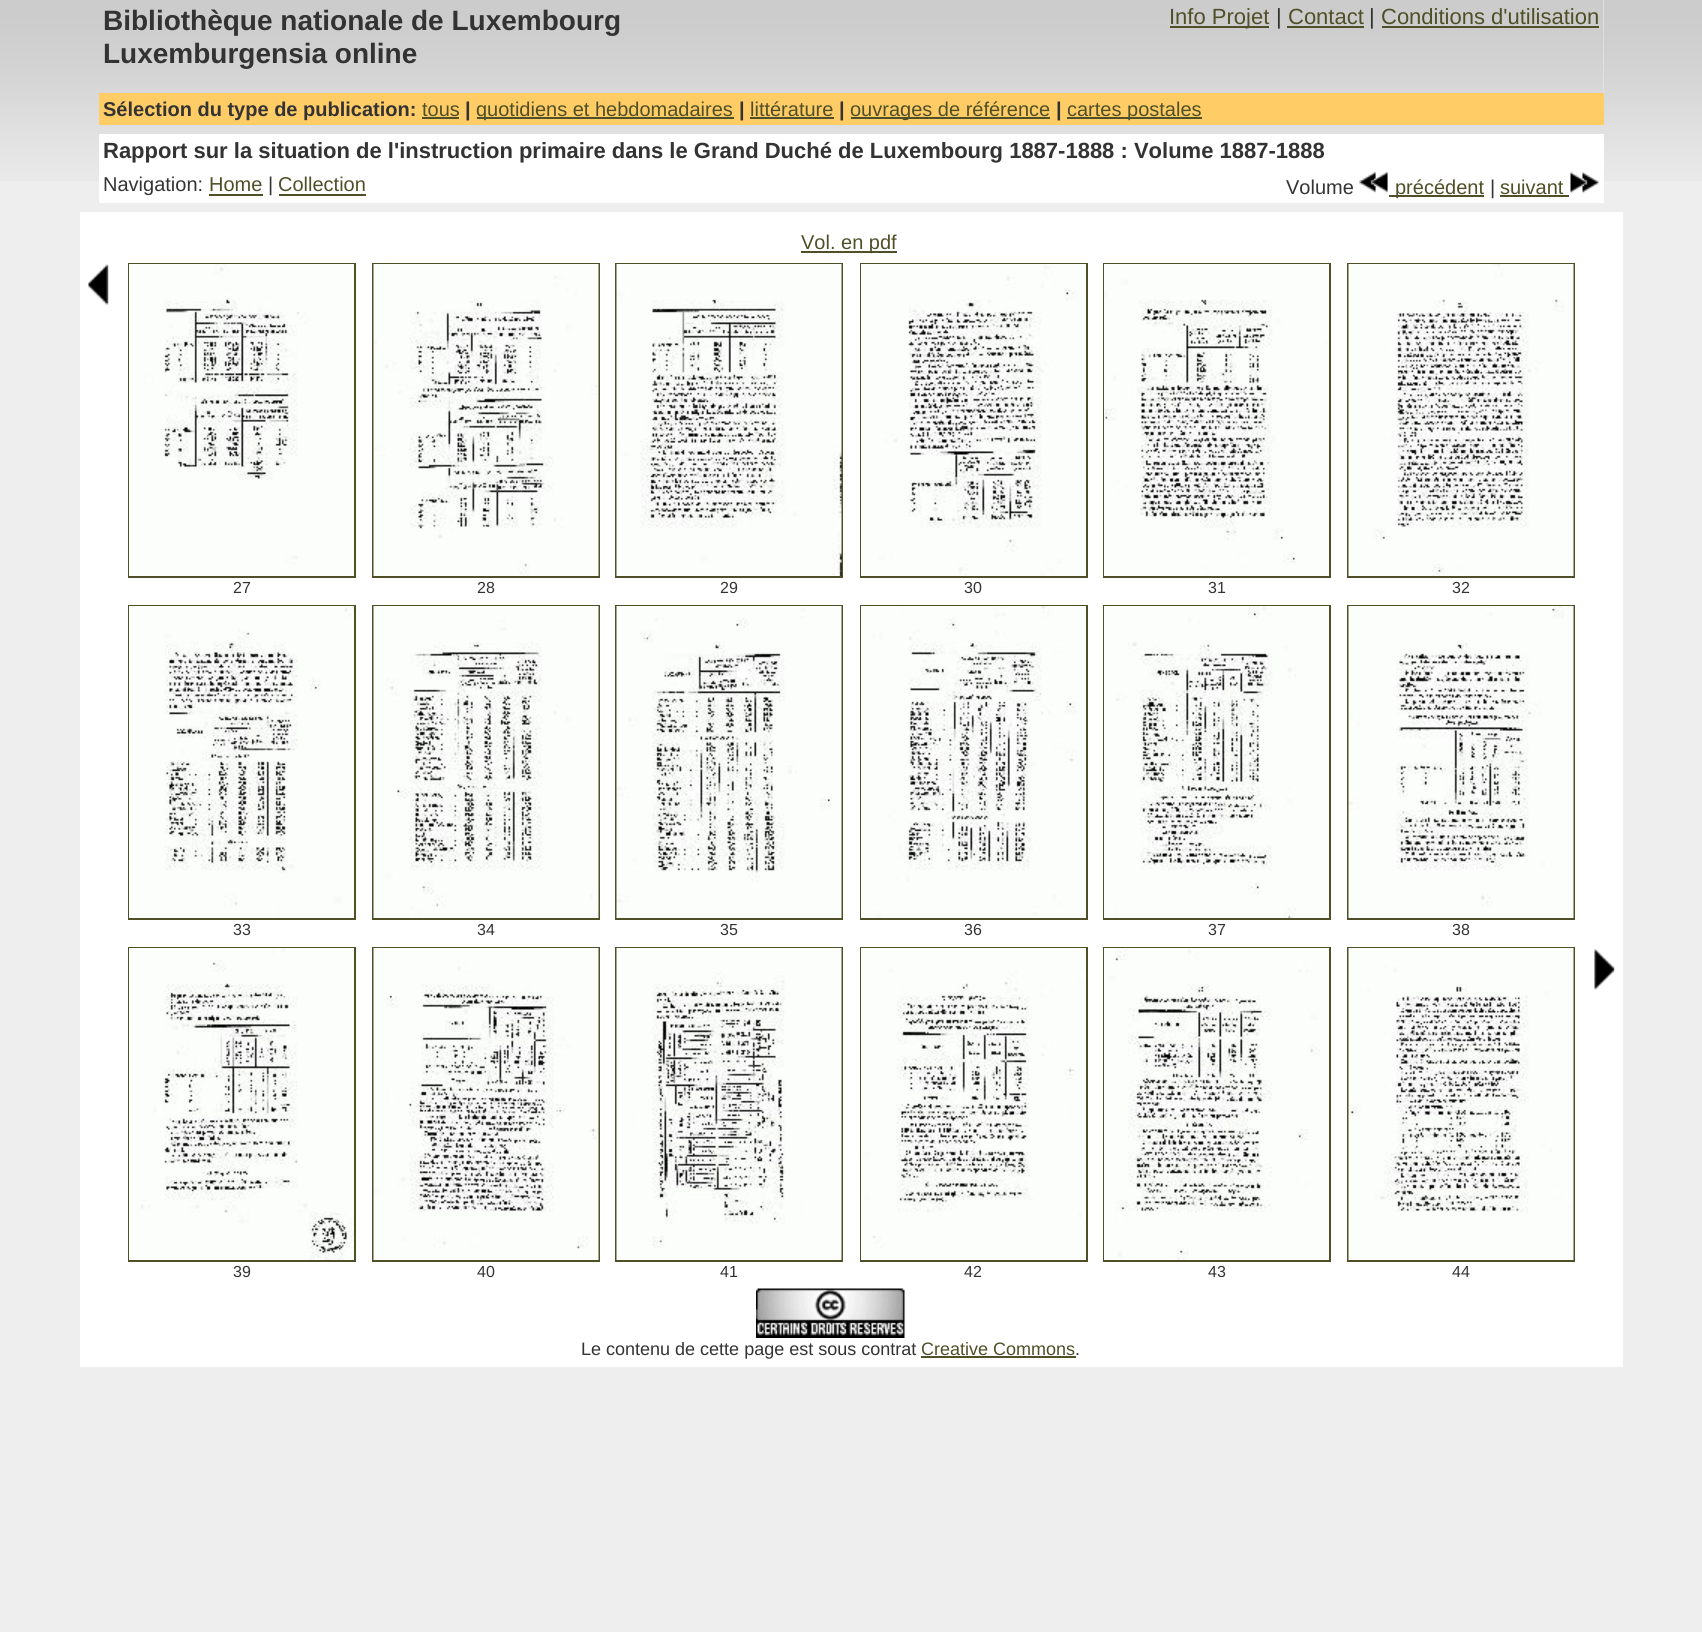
#include <cairo.h>
#include <math.h>
#include <stddef.h>

typedef struct { const char *family; double size; int italic, bold; unsigned color; } style_t;
static cairo_t *ctx;

static void ink(unsigned color) {
    cairo_set_source_rgb(ctx, (color >> 16) / 255.0, (color >> 8 & 255) / 255.0, (color & 255) / 255.0);
}

static void write(double x, double y, const char *s, const style_t *st) {
    cairo_select_font_face(ctx, st->family, st->italic ? CAIRO_FONT_SLANT_ITALIC : CAIRO_FONT_SLANT_NORMAL,
        st->bold ? CAIRO_FONT_WEIGHT_BOLD : CAIRO_FONT_WEIGHT_NORMAL);
    cairo_set_font_size(ctx, st->size);
    ink(st->color);
    cairo_move_to(ctx, x, y);
    cairo_show_text(ctx, s);
}

static void block(double x, double y, double w, double h, unsigned color) {
    ink(color);
    cairo_rectangle(ctx, x, y, w, h);
    cairo_fill(ctx);
}

static void paste(const char *path, double x, double y, double w, double h) {
    cairo_surface_t *image = cairo_image_surface_create_from_png(path);
    cairo_save(ctx);
    cairo_set_source_surface(ctx, image, x, y);
    cairo_rectangle(ctx, x, y, w, h);
    cairo_fill(ctx);
    cairo_restore(ctx);
    cairo_surface_destroy(image);
}

static const style_t s1 = {"Liberation Sans", 28, 0, 1, 0x333333};
static const style_t s2 = {"Liberation Sans", 22, 0, 0, 0x4f4f28};
static const style_t s3 = {"Liberation Sans", 22, 0, 0, 0x333333};
static const style_t s4 = {"Liberation Sans", 20, 0, 1, 0x333333};
static const style_t s5 = {"Liberation Sans", 20, 0, 0, 0x4f4f28};
static const style_t s6 = {"Liberation Sans", 22, 0, 1, 0x333333};
static const style_t s7 = {"Liberation Sans", 20, 0, 0, 0x333333};
static const style_t s8 = {"Liberation Sans", 16, 0, 0, 0x333333};
static const style_t s9 = {"Liberation Sans", 18, 0, 0, 0x333333};
static const style_t s10 = {"Liberation Sans", 18, 0, 0, 0x4f4f28};

int main(void) {
    cairo_surface_t *surface = cairo_image_surface_create(CAIRO_FORMAT_RGB24, 1702, 1632);
    ctx = cairo_create(surface);
    cairo_font_options_t *options = cairo_font_options_create();
    cairo_font_options_set_hint_metrics(options, CAIRO_HINT_METRICS_OFF);
    cairo_font_options_set_hint_style(options, CAIRO_HINT_STYLE_NONE);
    cairo_set_font_options(ctx, options);
    cairo_set_miter_limit(ctx, 4);
    ink(0xeeeeee);
    cairo_paint(ctx);
    paste("pic1.png", 0, 0, 1702, 181);
    block(1603, 0, 1, 93, 0xeeeeee);
    paste("pic2.png", 99, 0, 1505, 93);
    write(103, 30, "Bibliothèque nationale de Luxembourg", &s1);
    write(103, 63, "Luxemburgensia online", &s1);
    block(1170, 26, 99, 2, 0x4f4f28);
    write(1169, 24, "Info Projet", &s2);
    write(1276, 24, "|", &s3);
    write(1288, 24, "Contact", &s2);
    block(1287, 26, 77, 2, 0x4f4f28);
    write(1369, 24, "|", &s3);
    write(1381, 24, "Conditions d'utilisation", &s2);
    block(1382, 26, 217, 2, 0x4f4f28);
    block(99, 93, 1505, 32, 0xffcc66);
    write(103, 116, "Sélection du type de publication:", &s4);
    write(422, 116, "tous", &s5);
    block(422, 117, 37, 2, 0x4f4f28);
    write(465, 116, "|", &s4);
    block(477, 117, 257, 2, 0x4f4f28);
    write(476, 116, "quotidiens et hebdomadaires", &s5);
    write(739, 116, "|", &s4);
    write(750, 116, "littérature", &s5);
    block(750, 117, 84, 2, 0x4f4f28);
    write(839, 116, "|", &s4);
    block(851, 117, 199, 2, 0x4f4f28);
    write(850, 116, "ouvrages de référence", &s5);
    write(1056, 116, "|", &s4);
    block(1067, 117, 135, 2, 0x4f4f28);
    write(1067, 116, "cartes postales", &s5);
    block(99, 134, 1505, 69, 0xffffff);
    write(103, 158, "Rapport sur la situation de l'instruction primaire dans le Grand Duché de Luxembourg 1887-1888 : Volume 1887-1888", &s6);
    write(103, 191, "Navigation:", &s7);
    write(209, 191, "Home", &s5);
    block(209, 194, 54, 2, 0x4f4f28);
    write(268, 191, "|", &s7);
    write(278, 191, "Collection", &s5);
    block(279, 194, 87, 2, 0x4f4f28);
    write(1286, 194, "Volume", &s7);
    paste("pic3.png", 1359, 171, 29, 22);
    block(1389, 195, 95, 2, 0x4f4f28);
    write(1395, 194, "précédent", &s5);
    write(1490, 194, "|", &s7);
    write(1500, 194, "suivant", &s5);
    block(1500, 195, 69, 2, 0x4f4f28);
    paste("pic4.png", 1570, 172, 29, 22);
    block(80, 212, 1543, 1155, 0xffffff);
    block(801, 251, 96, 2, 0x4f4f28);
    write(801, 249, "Vol. en pdf", &s5);
    paste("pic5.png", 88, 263, 21, 42);
    cairo_rectangle(ctx, 129, 264, 226, 313);
    cairo_stroke(ctx);
    paste("pic6.png", 129, 264, 225, 312);
    write(233, 593, "27", &s8);
    cairo_rectangle(ctx, 373, 264, 226, 313);
    ink(0x4f4f28);
    cairo_stroke(ctx);
    paste("pic7.png", 373, 264, 226, 312);
    write(477, 593, "28", &s8);
    cairo_rectangle(ctx, 616, 264, 226, 313);
    ink(0x4f4f28);
    cairo_stroke(ctx);
    paste("pic8.png", 616, 264, 226, 312);
    write(720, 593, "29", &s8);
    cairo_rectangle(ctx, 861, 264, 226, 313);
    ink(0x4f4f28);
    cairo_stroke(ctx);
    paste("pic9.png", 861, 264, 225, 312);
    write(964, 593, "30", &s8);
    cairo_rectangle(ctx, 1104, 264, 226, 313);
    ink(0x4f4f28);
    cairo_stroke(ctx);
    paste("pic10.png", 1104, 264, 225, 312);
    write(1208, 593, "31", &s8);
    cairo_rectangle(ctx, 1348, 264, 226, 313);
    ink(0x4f4f28);
    cairo_stroke(ctx);
    paste("pic11.png", 1348, 264, 226, 312);
    write(1452, 593, "32", &s8);
    cairo_rectangle(ctx, 129, 606, 226, 313);
    ink(0x4f4f28);
    cairo_stroke(ctx);
    paste("pic12.png", 129, 606, 225, 312);
    write(233, 935, "33", &s8);
    cairo_rectangle(ctx, 373, 606, 226, 313);
    ink(0x4f4f28);
    cairo_stroke(ctx);
    paste("pic13.png", 373, 606, 226, 312);
    write(477, 935, "34", &s8);
    cairo_rectangle(ctx, 616, 606, 226, 313);
    ink(0x4f4f28);
    cairo_stroke(ctx);
    paste("pic14.png", 616, 606, 226, 312);
    write(720, 935, "35", &s8);
    cairo_rectangle(ctx, 861, 606, 226, 313);
    ink(0x4f4f28);
    cairo_stroke(ctx);
    paste("pic15.png", 861, 606, 225, 312);
    write(964, 935, "36", &s8);
    cairo_rectangle(ctx, 1104, 606, 226, 313);
    ink(0x4f4f28);
    cairo_stroke(ctx);
    paste("pic16.png", 1104, 606, 225, 312);
    write(1208, 935, "37", &s8);
    cairo_rectangle(ctx, 1348, 606, 226, 313);
    ink(0x4f4f28);
    cairo_stroke(ctx);
    paste("pic17.png", 1348, 606, 226, 312);
    write(1452, 935, "38", &s8);
    paste("pic18.png", 1594, 949, 21, 42);
    cairo_rectangle(ctx, 129, 948, 226, 313);
    ink(0x4f4f28);
    cairo_stroke(ctx);
    paste("pic19.png", 129, 948, 225, 312);
    write(233, 1277, "39", &s8);
    cairo_rectangle(ctx, 373, 948, 226, 313);
    ink(0x4f4f28);
    cairo_stroke(ctx);
    paste("pic20.png", 373, 948, 226, 312);
    write(477, 1277, "40", &s8);
    cairo_rectangle(ctx, 616, 948, 226, 313);
    ink(0x4f4f28);
    cairo_stroke(ctx);
    paste("pic21.png", 616, 948, 226, 312);
    write(720, 1277, "41", &s8);
    cairo_rectangle(ctx, 861, 948, 226, 313);
    ink(0x4f4f28);
    cairo_stroke(ctx);
    paste("pic22.png", 861, 948, 225, 312);
    write(964, 1277, "42", &s8);
    cairo_rectangle(ctx, 1104, 948, 226, 313);
    ink(0x4f4f28);
    cairo_stroke(ctx);
    paste("pic23.png", 1104, 948, 225, 312);
    write(1208, 1277, "43", &s8);
    cairo_rectangle(ctx, 1348, 948, 226, 313);
    ink(0x4f4f28);
    cairo_stroke(ctx);
    paste("pic24.png", 1348, 948, 226, 312);
    write(1452, 1277, "44", &s8);
    paste("pic25.png", 756, 1288, 149, 50);
    write(581, 1355, "Le contenu de cette page est sous contrat", &s9);
    write(921, 1355, "Creative Commons", &s10);
    block(921, 1356, 155, 2, 0x4f4f28);
    write(1075, 1355, ".", &s9);
    cairo_surface_write_to_png(surface, "screenshot.png");
    cairo_font_options_destroy(options);
    cairo_destroy(ctx);
    cairo_surface_destroy(surface);
    return 0;
}
